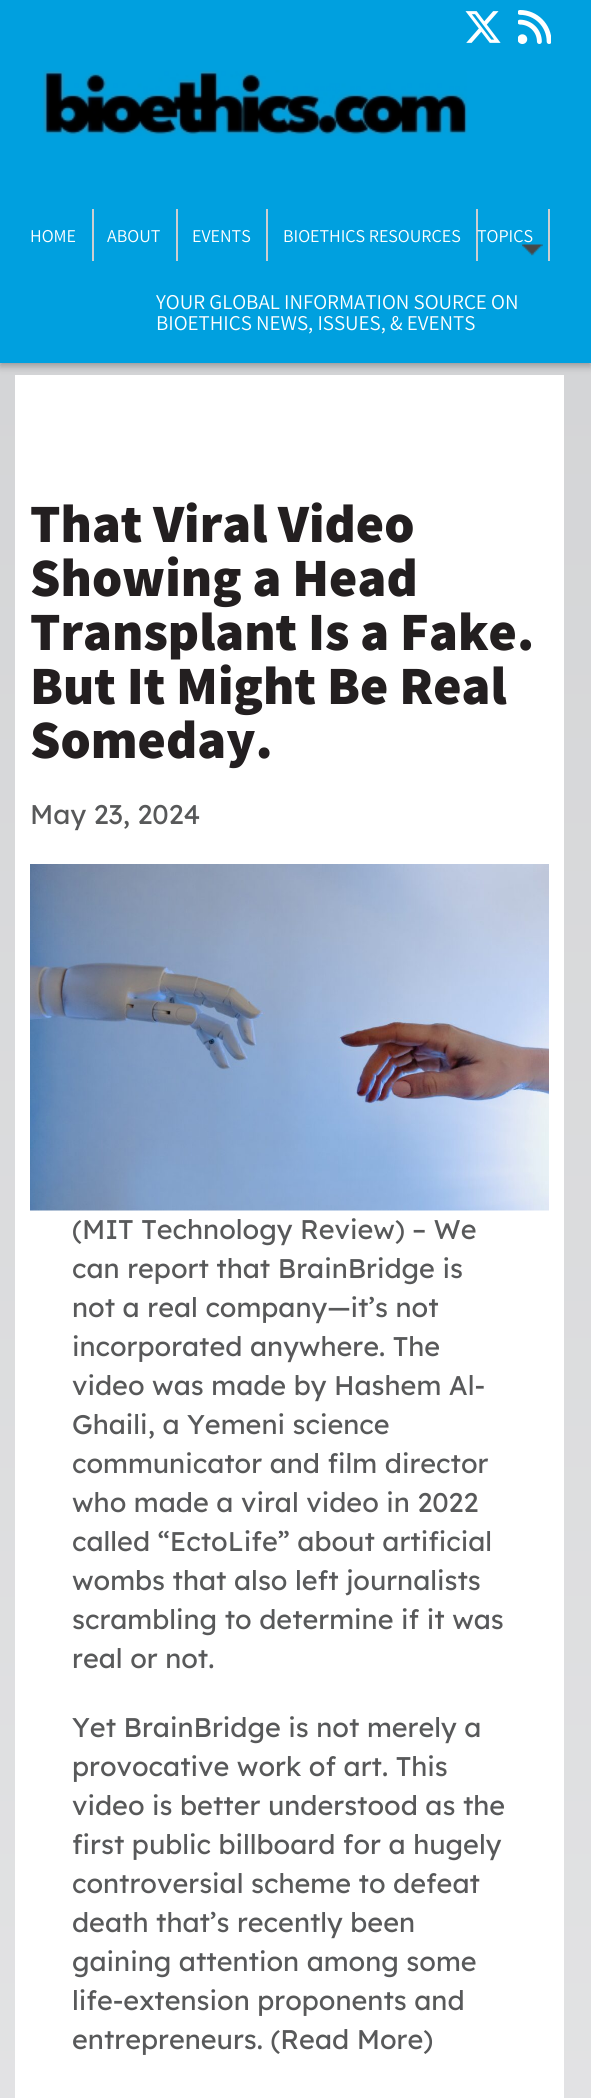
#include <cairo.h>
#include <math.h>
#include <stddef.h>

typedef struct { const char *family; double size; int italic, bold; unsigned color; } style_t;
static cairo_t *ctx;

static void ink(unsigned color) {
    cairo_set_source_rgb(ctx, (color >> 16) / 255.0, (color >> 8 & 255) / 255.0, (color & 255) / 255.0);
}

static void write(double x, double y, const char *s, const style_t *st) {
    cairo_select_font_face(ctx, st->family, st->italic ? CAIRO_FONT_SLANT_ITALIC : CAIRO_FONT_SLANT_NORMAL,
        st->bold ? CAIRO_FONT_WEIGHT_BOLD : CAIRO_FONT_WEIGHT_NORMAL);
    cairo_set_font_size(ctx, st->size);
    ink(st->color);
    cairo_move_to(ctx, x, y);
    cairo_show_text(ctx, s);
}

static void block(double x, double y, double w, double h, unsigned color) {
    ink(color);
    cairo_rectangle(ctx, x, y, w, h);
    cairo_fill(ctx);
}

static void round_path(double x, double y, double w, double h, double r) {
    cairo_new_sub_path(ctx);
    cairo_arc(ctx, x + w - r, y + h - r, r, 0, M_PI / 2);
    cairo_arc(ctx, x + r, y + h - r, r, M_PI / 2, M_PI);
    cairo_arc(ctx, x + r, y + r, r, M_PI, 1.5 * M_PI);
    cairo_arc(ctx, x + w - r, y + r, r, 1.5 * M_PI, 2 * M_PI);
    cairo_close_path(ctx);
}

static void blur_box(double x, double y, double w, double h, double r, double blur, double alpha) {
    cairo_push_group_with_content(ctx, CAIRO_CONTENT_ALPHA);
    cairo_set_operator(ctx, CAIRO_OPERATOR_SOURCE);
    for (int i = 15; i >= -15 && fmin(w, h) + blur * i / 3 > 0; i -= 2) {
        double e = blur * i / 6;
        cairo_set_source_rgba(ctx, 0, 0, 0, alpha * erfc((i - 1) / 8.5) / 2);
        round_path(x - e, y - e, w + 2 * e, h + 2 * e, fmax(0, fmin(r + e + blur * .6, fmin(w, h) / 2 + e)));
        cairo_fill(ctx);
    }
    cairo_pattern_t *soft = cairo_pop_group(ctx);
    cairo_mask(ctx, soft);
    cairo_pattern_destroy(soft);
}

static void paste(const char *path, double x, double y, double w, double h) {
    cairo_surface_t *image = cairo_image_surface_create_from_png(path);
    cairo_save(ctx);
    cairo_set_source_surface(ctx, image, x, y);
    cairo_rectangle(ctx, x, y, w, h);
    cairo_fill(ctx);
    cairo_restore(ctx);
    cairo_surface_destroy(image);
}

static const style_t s1 = {"Assistant", 18, 0, 0, 0xffffff};
static const style_t s2 = {"Assistant", 21, 0, 0, 0xffffff};
static const style_t s3 = {"Assistant ExtraBold", 54, 0, 0, 0x231f20};
static const style_t s4 = {"Lexend", 27, 0, 0, 0x58595a};

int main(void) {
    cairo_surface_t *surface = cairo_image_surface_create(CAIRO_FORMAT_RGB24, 591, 2098);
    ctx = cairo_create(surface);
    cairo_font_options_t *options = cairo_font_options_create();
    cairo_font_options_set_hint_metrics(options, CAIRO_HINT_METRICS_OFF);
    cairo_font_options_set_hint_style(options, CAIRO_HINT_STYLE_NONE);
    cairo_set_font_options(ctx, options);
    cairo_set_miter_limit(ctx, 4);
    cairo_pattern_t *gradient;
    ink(0xffffff);
    cairo_paint(ctx);
    gradient = cairo_pattern_create_linear(295, 0, 296, 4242);
    cairo_pattern_add_color_stop_rgba(gradient, 0, 0.82, 0.824, 0.831, 1);
    cairo_pattern_add_color_stop_rgba(gradient, 1, 0.953, 0.953, 0.957, 1);
    cairo_set_source(ctx, gradient);
    cairo_pattern_destroy(gradient);
    cairo_rectangle(ctx, 0, 363, 591, 1735);
    cairo_fill(ctx);
    block(15, 375, 549, 1723, 0xffffff);
    ink(0x000000);
    blur_box(0, 3, 591, 363, 0, 4, 0.3);
    block(0, 0, 591, 363, 0x00a0df);
    paste("pic1.png", 43, 70, 424, 66);
    block(92, 209, 2, 52, 0xcdced0);
    write(30, 242, "HOME", &s1);
    block(176, 209, 2, 52, 0xcdced0);
    write(107, 242, "ABOUT", &s1);
    block(266, 209, 2, 52, 0xcdced0);
    write(192, 242, "EVENTS", &s1);
    block(476, 209, 2, 52, 0xcdced0);
    write(283, 242, "BIOETHICS RESOURCES", &s1);
    paste("pic2.png", 522, 244, 21, 12);
    block(548, 209, 2, 52, 0xcdced0);
    write(477, 242, "TOPICS", &s1);
    paste("pic3.png", 465, 11, 36, 32);
    paste("pic4.png", 518, 10, 33, 34);
    write(156, 309, "YOUR GLOBAL INFORMATION SOURCE ON", &s2);
    write(156, 330, "BIOETHICS NEWS, ISSUES, & EVENTS", &s2);
    write(30, 542, "That Viral Video", &s3);
    write(30, 596, "Showing a Head", &s3);
    write(30, 650, "Transplant Is a Fake.", &s3);
    write(30, 704, "But It Might Be Real", &s3);
    write(30, 758, "Someday.", &s3);
    write(30, 824, "May 23, 2024", &s4);
    paste("pic5.png", 30, 864, 519, 347);
    write(72, 1239, "(MIT Technology Review) – We", &s4);
    write(72, 1278, "can report that BrainBridge is", &s4);
    write(72, 1317, "not a real company—it’s not", &s4);
    write(72, 1356, "incorporated anywhere. The", &s4);
    write(72, 1395, "video was made by Hashem Al-", &s4);
    write(72, 1434, "Ghaili, a Yemeni science", &s4);
    write(72, 1473, "communicator and film director", &s4);
    write(72, 1512, "who made a viral video in 2022", &s4);
    write(72, 1551, "called “EctoLife” about artificial", &s4);
    write(72, 1590, "wombs that also left journalists", &s4);
    write(72, 1629, "scrambling to determine if it was", &s4);
    write(72, 1668, "real or not.", &s4);
    write(72, 1737, "Yet BrainBridge is not merely a", &s4);
    write(72, 1776, "provocative work of art. This", &s4);
    write(72, 1815, "video is better understood as the", &s4);
    write(72, 1854, "first public billboard for a hugely", &s4);
    write(72, 1893, "controversial scheme to defeat", &s4);
    write(72, 1932, "death that’s recently been", &s4);
    write(72, 1971, "gaining attention among some", &s4);
    write(72, 2010, "life-extension proponents and", &s4);
    write(72, 2049, "entrepreneurs. (Read More)", &s4);
    cairo_surface_write_to_png(surface, "screenshot.png");
    cairo_font_options_destroy(options);
    cairo_destroy(ctx);
    cairo_surface_destroy(surface);
    return 0;
}
